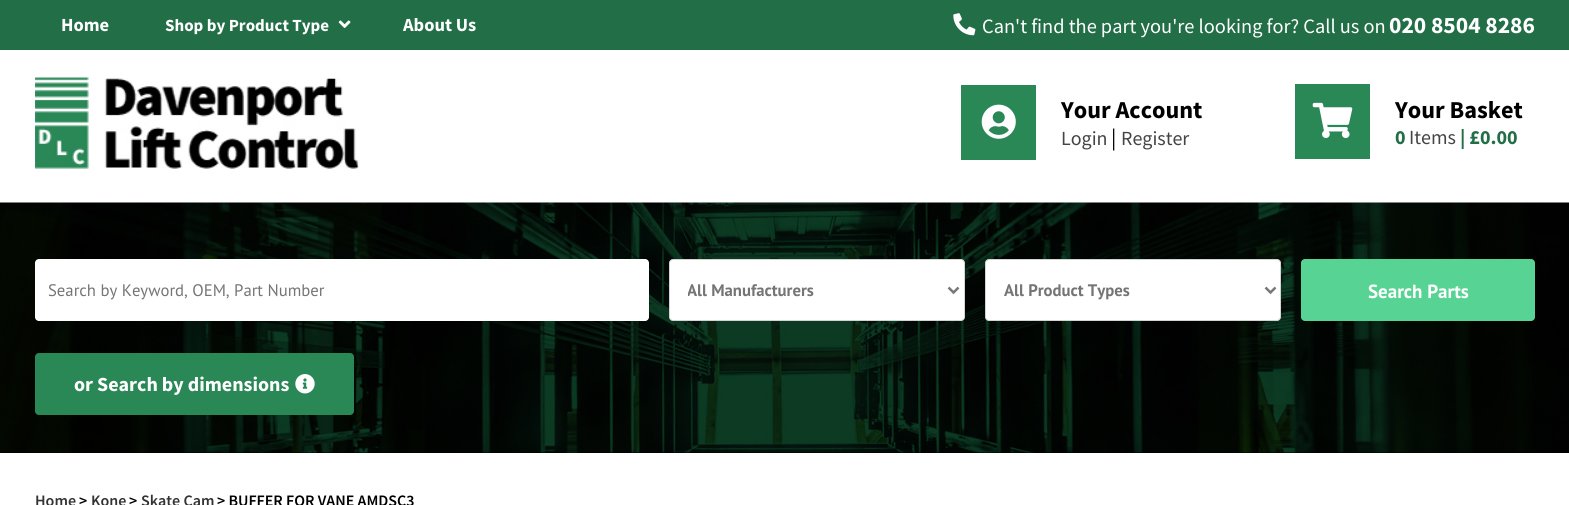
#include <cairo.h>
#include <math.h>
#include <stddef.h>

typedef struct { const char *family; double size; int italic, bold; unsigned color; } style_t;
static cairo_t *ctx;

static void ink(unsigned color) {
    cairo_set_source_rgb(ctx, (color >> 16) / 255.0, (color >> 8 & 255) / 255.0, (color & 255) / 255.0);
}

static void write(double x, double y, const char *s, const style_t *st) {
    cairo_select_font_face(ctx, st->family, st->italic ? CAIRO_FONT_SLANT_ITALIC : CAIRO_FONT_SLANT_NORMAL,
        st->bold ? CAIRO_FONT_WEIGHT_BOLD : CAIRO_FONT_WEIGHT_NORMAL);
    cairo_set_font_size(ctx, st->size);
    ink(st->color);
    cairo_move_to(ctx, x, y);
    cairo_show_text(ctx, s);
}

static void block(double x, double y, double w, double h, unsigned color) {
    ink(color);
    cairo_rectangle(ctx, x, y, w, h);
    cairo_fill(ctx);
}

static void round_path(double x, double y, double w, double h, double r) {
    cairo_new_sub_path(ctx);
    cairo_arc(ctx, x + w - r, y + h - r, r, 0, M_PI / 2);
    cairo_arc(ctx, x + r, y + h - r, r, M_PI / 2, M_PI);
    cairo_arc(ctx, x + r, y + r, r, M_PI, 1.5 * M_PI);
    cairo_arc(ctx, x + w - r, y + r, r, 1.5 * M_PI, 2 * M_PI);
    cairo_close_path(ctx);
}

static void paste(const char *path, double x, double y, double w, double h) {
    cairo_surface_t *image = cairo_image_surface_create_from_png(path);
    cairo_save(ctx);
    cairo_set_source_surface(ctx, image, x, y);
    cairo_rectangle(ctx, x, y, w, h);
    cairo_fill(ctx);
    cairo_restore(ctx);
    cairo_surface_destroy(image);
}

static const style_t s1 = {"Source Sans Pro", 18.5, 0, 1, 0xffffff};
static const style_t s2 = {"Source Sans Pro", 17, 0, 1, 0xffffff};
static const style_t s3 = {"Source Sans Pro", 20.4, 0, 0, 0xffffff};
static const style_t s4 = {"Source Sans Pro", 23.5, 0, 1, 0xffffff};
static const style_t s5 = {"Source Sans Pro", 24.25, 0, 1, 0x000000};
static const style_t s6 = {"Source Sans Pro", 20, 0, 0, 0x444444};
static const style_t s7 = {"Source Sans Pro", 22, 0, 0, 0x000000};
static const style_t s8 = {"Source Sans Pro", 20, 0, 1, 0x226e47};
static const style_t s9 = {"PT Sans", 16.7, 0, 0, 0x757575};
static const style_t s10 = {"PT Sans", 16.7, 0, 1, 0x757575};
static const style_t s11 = {"PT Sans", 19, 0, 1, 0xffffff};
static const style_t s12 = {"Source Sans Pro", 20, 0, 1, 0xffffff};
static const style_t s13 = {"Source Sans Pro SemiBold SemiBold", 16, 0, 0, 0x333333};
static const style_t s14 = {"Source Sans Pro SemiBold SemiBold", 16, 0, 0, 0x000000};

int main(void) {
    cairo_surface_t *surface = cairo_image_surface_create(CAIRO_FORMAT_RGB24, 1569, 505);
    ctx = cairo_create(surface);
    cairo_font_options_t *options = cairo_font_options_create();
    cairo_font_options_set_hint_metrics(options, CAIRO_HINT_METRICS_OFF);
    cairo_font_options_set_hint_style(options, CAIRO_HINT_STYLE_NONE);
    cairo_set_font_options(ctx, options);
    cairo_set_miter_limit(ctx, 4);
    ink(0xffffff);
    cairo_paint(ctx);
    block(0, 0, 1569, 50, 0x226e47);
    write(61, 31, "Home", &s1);
    write(165, 31, "Shop by Product Type", &s2);
    paste("pic1.png", 338, 20, 13, 8);
    write(403, 31, "About Us", &s1);
    paste("pic2.png", 953, 13, 23, 23);
    write(982, 33, "Can't find the part you're looking for? Call us on", &s3);
    write(1389, 33, "020 8504 8286", &s4);
    paste("pic3.png", 35, 77, 324, 92);
    block(961, 85, 75, 75, 0x2a8857);
    paste("pic4.png", 981, 104, 35, 35);
    write(1061, 118, "Your Account", &s5);
    write(1061, 145, "Login", &s6);
    write(1111, 145, "|", &s7);
    write(1121, 145, "Register", &s6);
    block(1295, 84, 75, 75, 0x2a8857);
    paste("pic5.png", 1312, 102, 41, 37);
    write(1395, 118, "Your Basket", &s5);
    write(1395, 144, "0", &s8);
    write(1409, 144, "Items", &s6);
    write(1460, 144, "| £0.00", &s8);
    block(0, 452, 1569, 1, 0x010101);
    paste("pic6.png", 0, 202, 1569, 251);
    ink(0xffffff);
    round_path(35, 259, 614, 62, 4);
    cairo_fill(ctx);
    write(48, 296, "Search by Keyword, OEM, Part Number", &s9);
    ink(0xffffff);
    round_path(669.5, 259.5, 295, 61, 3.5);
    cairo_fill_preserve(ctx);
    ink(0xd4d4d4);
    cairo_set_line_width(ctx, 1);
    cairo_stroke(ctx);
    cairo_new_path(ctx);
    cairo_move_to(ctx, 948.5, 287.5);
    cairo_line_to(ctx, 953.5, 292.5);
    cairo_line_to(ctx, 958.5, 287.5);
    ink(0x777777);
    cairo_set_line_width(ctx, 2.5);
    cairo_stroke(ctx);
    cairo_save(ctx);
    cairo_rectangle(ctx, 688, 278, 243, 25);
    cairo_clip(ctx);
    write(687, 296, "All Manufacturers", &s10);
    cairo_restore(ctx);
    ink(0xffffff);
    round_path(985.5, 259.5, 295, 61, 3.5);
    cairo_fill_preserve(ctx);
    ink(0xd4d4d4);
    cairo_set_line_width(ctx, 1);
    cairo_stroke(ctx);
    cairo_new_path(ctx);
    cairo_move_to(ctx, 1265.5, 287.5);
    cairo_line_to(ctx, 1270.5, 292.5);
    cairo_line_to(ctx, 1275.5, 287.5);
    ink(0x777777);
    cairo_set_line_width(ctx, 2.5);
    cairo_stroke(ctx);
    write(1004, 296, "All Product Types", &s10);
    ink(0x57d493);
    round_path(1301, 259, 234, 62, 4);
    cairo_fill(ctx);
    write(1368, 298, "Search Parts", &s11);
    ink(0x2a8857);
    round_path(35, 353, 319, 62, 4);
    cairo_fill(ctx);
    write(74, 391, "or Search by dimensions", &s12);
    paste("pic7.png", 295, 374, 20, 20);
    write(35, 506, "Home", &s13);
    write(79, 506, ">", &s14);
    write(91, 506, "Kone", &s13);
    write(129, 506, ">", &s14);
    write(141, 506, "Skate Cam", &s13);
    write(217, 506, "> BUFFER FOR VANE AMDSC3", &s14);
    cairo_surface_write_to_png(surface, "screenshot.png");
    cairo_font_options_destroy(options);
    cairo_destroy(ctx);
    cairo_surface_destroy(surface);
    return 0;
}
